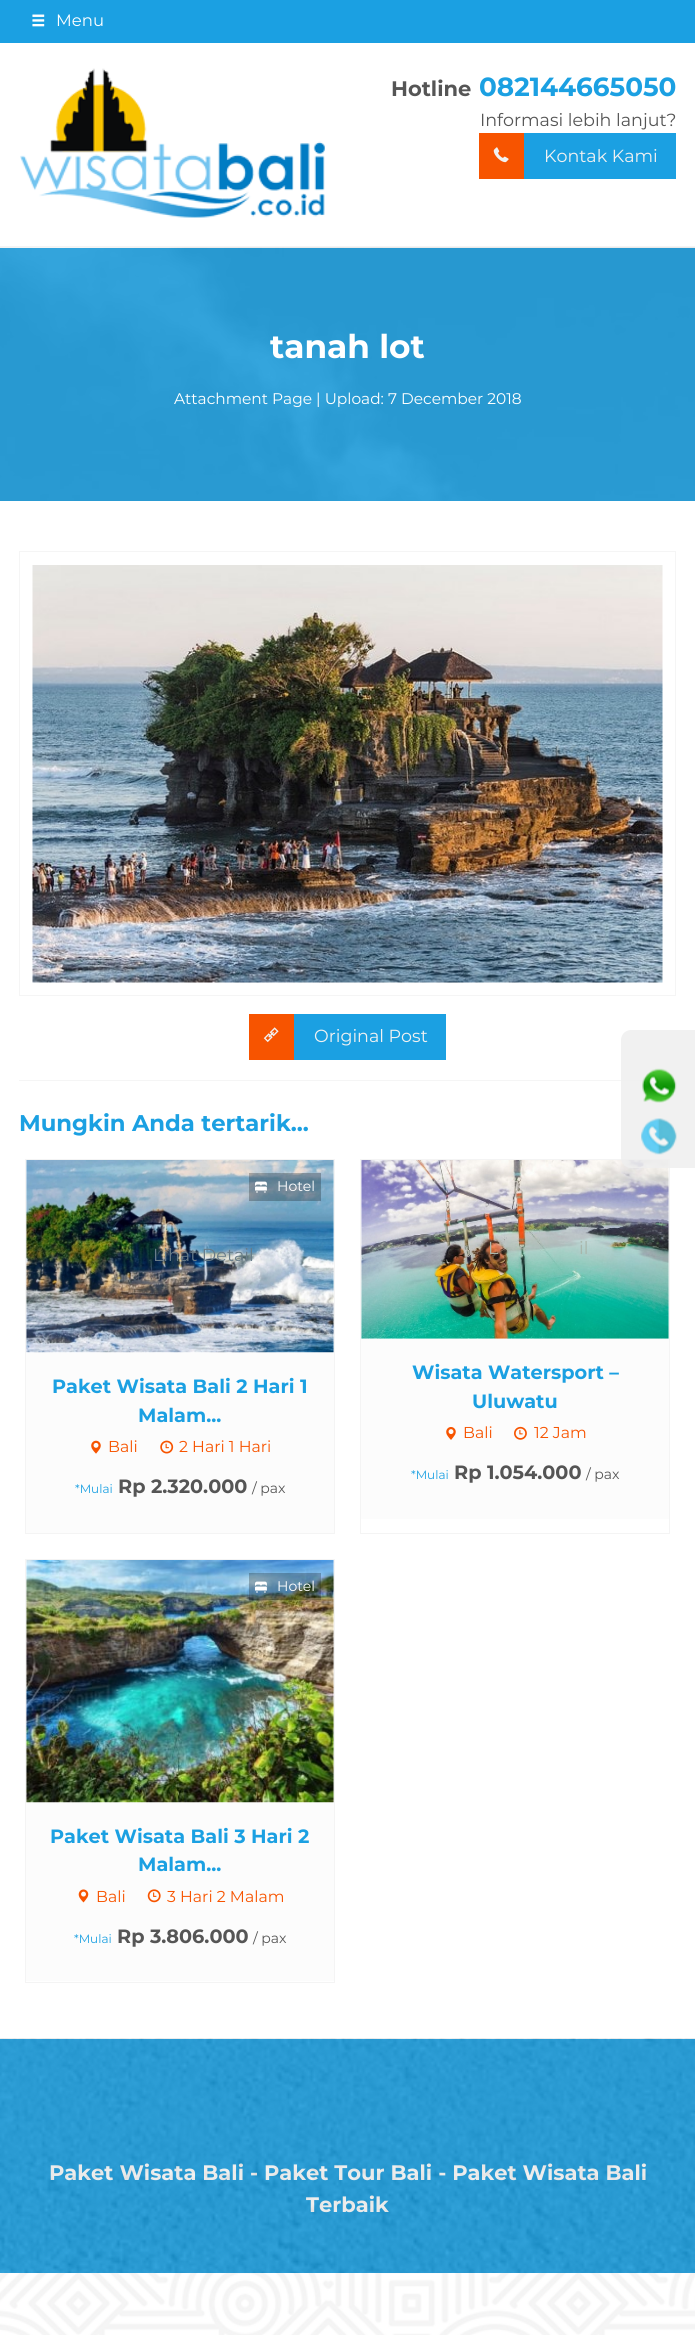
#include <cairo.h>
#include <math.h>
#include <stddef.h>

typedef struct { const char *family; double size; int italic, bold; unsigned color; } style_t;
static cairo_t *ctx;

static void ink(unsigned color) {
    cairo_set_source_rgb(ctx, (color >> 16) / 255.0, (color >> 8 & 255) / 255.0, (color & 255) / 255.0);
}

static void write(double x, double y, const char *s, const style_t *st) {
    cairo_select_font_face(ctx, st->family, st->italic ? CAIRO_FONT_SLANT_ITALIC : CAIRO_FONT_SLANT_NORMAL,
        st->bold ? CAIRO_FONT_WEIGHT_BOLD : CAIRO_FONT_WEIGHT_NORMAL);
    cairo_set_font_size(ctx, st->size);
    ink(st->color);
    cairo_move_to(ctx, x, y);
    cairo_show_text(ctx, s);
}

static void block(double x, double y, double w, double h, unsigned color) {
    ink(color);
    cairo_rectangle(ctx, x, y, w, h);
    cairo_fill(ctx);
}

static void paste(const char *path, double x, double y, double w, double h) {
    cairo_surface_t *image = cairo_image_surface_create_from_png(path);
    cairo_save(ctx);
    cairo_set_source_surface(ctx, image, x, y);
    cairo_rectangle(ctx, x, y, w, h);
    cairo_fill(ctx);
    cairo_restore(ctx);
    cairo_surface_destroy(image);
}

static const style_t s1 = {"Montserrat", 16.5, 0, 0, 0xffffff};
static const style_t s2 = {"Montserrat", 21, 0, 1, 0x555555};
static const style_t s3 = {"Montserrat", 26.25, 0, 1, 0x1ba0e2};
static const style_t s4 = {"Montserrat", 17.5, 0, 0, 0x555555};
static const style_t s5 = {"Montserrat", 17.5, 0, 0, 0xf1f1f1};
static const style_t s6 = {"Montserrat", 32.75, 0, 1, 0xffffff};
static const style_t s7 = {"Montserrat", 15.4, 0, 0, 0xffffff};
static const style_t s8 = {"Montserrat", 22.75, 0, 1, 0x1ba0e2};
static const style_t s9 = {"Montserrat", 14, 0, 0, 0xffffff};
static const style_t s10 = {"Montserrat", 17.5, 0, 0, 0x687c89};
static const style_t s11 = {"Montserrat", 19.25, 0, 1, 0x1ba0e2};
static const style_t s12 = {"Montserrat", 15.75, 0, 0, 0xf75400};
static const style_t s13 = {"Montserrat", 12, 0, 0, 0x1ba0e2};
static const style_t s14 = {"Montserrat", 19.25, 0, 1, 0x555555};
static const style_t s15 = {"Montserrat", 14, 0, 0, 0x555555};
static const style_t s16 = {"Montserrat", 17.5, 0, 0, 0xa8b5aa};
static const style_t s17 = {"Montserrat", 21, 0, 1, 0xffffff};

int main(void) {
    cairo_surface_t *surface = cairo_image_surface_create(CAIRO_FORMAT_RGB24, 695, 2335);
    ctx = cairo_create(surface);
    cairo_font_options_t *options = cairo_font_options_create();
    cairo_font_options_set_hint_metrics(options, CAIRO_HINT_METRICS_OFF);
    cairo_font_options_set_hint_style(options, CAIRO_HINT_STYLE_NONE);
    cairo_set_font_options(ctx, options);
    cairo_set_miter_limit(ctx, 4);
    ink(0xffffff);
    cairo_paint(ctx);
    paste("pic1.png", 0, 2273, 695, 62);
    block(0, 0, 695, 43, 0x1ba0e2);
    paste("pic2.png", 32, 14, 13, 13);
    write(56, 26, "Menu", &s1);
    block(0, 246, 695, 1, 0xf4f4f4);
    paste("pic3.png", 20, 68, 305, 150);
    write(391, 96, "Hotline", &s2);
    write(479, 96, "082144665050", &s3);
    write(480, 126, "Informasi lebih lanjut?", &s4);
    block(524, 133, 152, 46, 0x1ba0e2);
    block(479, 133, 45, 46, 0xf75400);
    paste("pic4.png", 493, 147, 16, 16);
    write(544, 162, "Kontak Kami", &s5);
    block(0, 248, 695, 253, 0x1ba0e2);
    paste("pic5.png", 0, 247, 695, 254);
    write(270, 358, "tanah lot", &s6);
    write(174, 404, "Attachment Page | Upload: 7 December 2018", &s7);
    block(19, 1080, 657, 1, 0xf5f5f5);
    cairo_rectangle(ctx, 19.5, 551.5, 656, 444);
    cairo_set_line_width(ctx, 1);
    cairo_stroke(ctx);
    paste("pic6.png", 32, 565, 631, 418);
    block(294, 1014, 152, 46, 0x1ba0e2);
    block(249, 1014, 45, 46, 0xf75400);
    paste("pic7.png", 263, 1027, 16, 16);
    write(314, 1042, "Original Post", &s5);
    write(19, 1131, "Mungkin Anda tertarik...", &s8);
    cairo_rectangle(ctx, 25.5, 1159.5, 309, 374);
    ink(0xf4f4f4);
    cairo_stroke(ctx);
    paste("pic9.png", 26, 1160, 308, 193);
    cairo_set_source_rgba(ctx, 0, 0, 0, 0.25);
    cairo_rectangle(ctx, 249, 1173, 72, 28);
    cairo_fill(ctx);
    paste("pic8.png", 255, 1181, 12, 12);
    write(277, 1191, "Hotel", &s9);
    write(153, 1261, "Lihat Detail", &s10);
    block(26, 1353, 308, 180, 0xfcfcfc);
    write(52, 1393, "Paket Wisata Bali 2 Hari 1", &s11);
    write(138, 1422, "Malam...", &s11);
    paste("pic10.png", 91, 1440, 10, 14);
    write(108, 1452, "Bali", &s12);
    paste("pic11.png", 160, 1440, 14, 14);
    write(179, 1452, "2 Hari 1 Hari", &s12);
    write(75, 1493, "*Mulai", &s13);
    write(118, 1493, "Rp 2.320.000", &s14);
    write(252, 1493, "/ pax", &s15);
    cairo_rectangle(ctx, 360.5, 1159.5, 309, 374);
    ink(0xf4f4f4);
    cairo_stroke(ctx);
    paste("pic12.png", 361, 1160, 308, 179);
    write(488, 1254, "L", &s16);
    write(579, 1254, "il", &s16);
    block(361, 1339, 308, 180, 0xfcfcfc);
    write(412, 1379, "Wisata Watersport –", &s11);
    write(472, 1408, "Uluwatu", &s11);
    paste("pic13.png", 446, 1427, 10, 13);
    write(463, 1438, "Bali", &s12);
    paste("pic14.png", 514, 1426, 13, 14);
    write(534, 1438, "12 Jam", &s12);
    write(411, 1479, "*Mulai", &s13);
    write(454, 1479, "Rp 1.054.000", &s14);
    write(586, 1479, "/ pax", &s15);
    cairo_rectangle(ctx, 25.5, 1559.5, 309, 423);
    ink(0xf4f4f4);
    cairo_stroke(ctx);
    paste("pic15.png", 26, 1560, 308, 243);
    cairo_set_source_rgba(ctx, 0, 0, 0, 0.25);
    cairo_rectangle(ctx, 249, 1573, 72, 27);
    cairo_fill(ctx);
    paste("pic16.png", 255, 1581, 12, 12);
    write(277, 1591, "Hotel", &s9);
    block(26, 1803, 308, 178, 0xfcfcfc);
    write(50, 1843, "Paket Wisata Bali 3 Hari 2", &s11);
    write(138, 1871, "Malam...", &s11);
    paste("pic17.png", 78, 1889, 11, 14);
    write(96, 1902, "Bali", &s12);
    paste("pic18.png", 147, 1889, 14, 14);
    write(167, 1902, "3 Hari 2 Malam", &s12);
    write(74, 1943, "*Mulai", &s13);
    write(117, 1943, "Rp 3.806.000", &s14);
    write(253, 1943, "/ pax", &s15);
    cairo_set_source_rgba(ctx, 0.933, 0.933, 0.933, 0.85);
    cairo_new_path(ctx);
    cairo_move_to(ctx, 631, 1030);
    cairo_line_to(ctx, 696, 1030);
    cairo_line_to(ctx, 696, 1168);
    cairo_line_to(ctx, 631, 1168);
    cairo_curve_to(ctx, 625.5, 1168, 621, 1163.5, 621, 1158);
    cairo_line_to(ctx, 621, 1040);
    cairo_curve_to(ctx, 621, 1034.5, 625.5, 1030, 631, 1030);
    cairo_close_path(ctx);
    cairo_fill(ctx);
    paste("pic19.png", 642, 1068, 35, 35);
    paste("pic20.png", 641, 1118, 36, 37);
    block(0, 2039, 695, 234, 0x1ba0e2);
    write(49, 2180, "Paket Wisata Bali - Paket Tour Bali - Paket Wisata Bali", &s17);
    write(306, 2212, "Terbaik", &s17);
    paste("pic21.png", 0, 2038, 695, 235);
    cairo_surface_write_to_png(surface, "screenshot.png");
    cairo_font_options_destroy(options);
    cairo_destroy(ctx);
    cairo_surface_destroy(surface);
    return 0;
}
